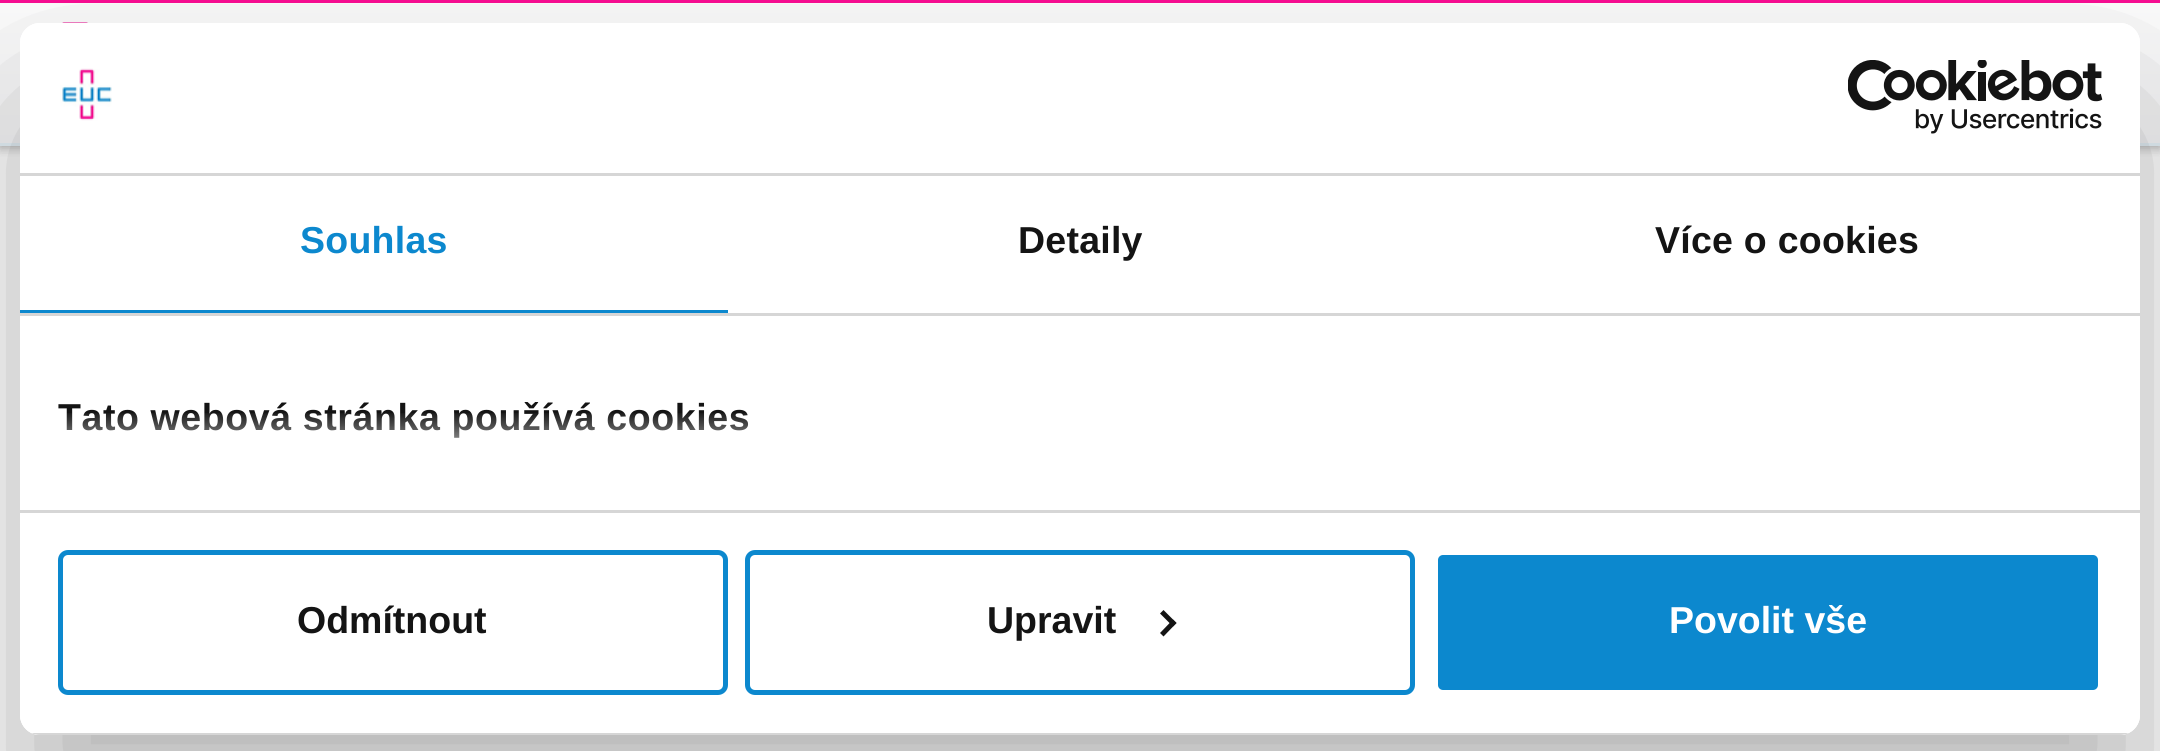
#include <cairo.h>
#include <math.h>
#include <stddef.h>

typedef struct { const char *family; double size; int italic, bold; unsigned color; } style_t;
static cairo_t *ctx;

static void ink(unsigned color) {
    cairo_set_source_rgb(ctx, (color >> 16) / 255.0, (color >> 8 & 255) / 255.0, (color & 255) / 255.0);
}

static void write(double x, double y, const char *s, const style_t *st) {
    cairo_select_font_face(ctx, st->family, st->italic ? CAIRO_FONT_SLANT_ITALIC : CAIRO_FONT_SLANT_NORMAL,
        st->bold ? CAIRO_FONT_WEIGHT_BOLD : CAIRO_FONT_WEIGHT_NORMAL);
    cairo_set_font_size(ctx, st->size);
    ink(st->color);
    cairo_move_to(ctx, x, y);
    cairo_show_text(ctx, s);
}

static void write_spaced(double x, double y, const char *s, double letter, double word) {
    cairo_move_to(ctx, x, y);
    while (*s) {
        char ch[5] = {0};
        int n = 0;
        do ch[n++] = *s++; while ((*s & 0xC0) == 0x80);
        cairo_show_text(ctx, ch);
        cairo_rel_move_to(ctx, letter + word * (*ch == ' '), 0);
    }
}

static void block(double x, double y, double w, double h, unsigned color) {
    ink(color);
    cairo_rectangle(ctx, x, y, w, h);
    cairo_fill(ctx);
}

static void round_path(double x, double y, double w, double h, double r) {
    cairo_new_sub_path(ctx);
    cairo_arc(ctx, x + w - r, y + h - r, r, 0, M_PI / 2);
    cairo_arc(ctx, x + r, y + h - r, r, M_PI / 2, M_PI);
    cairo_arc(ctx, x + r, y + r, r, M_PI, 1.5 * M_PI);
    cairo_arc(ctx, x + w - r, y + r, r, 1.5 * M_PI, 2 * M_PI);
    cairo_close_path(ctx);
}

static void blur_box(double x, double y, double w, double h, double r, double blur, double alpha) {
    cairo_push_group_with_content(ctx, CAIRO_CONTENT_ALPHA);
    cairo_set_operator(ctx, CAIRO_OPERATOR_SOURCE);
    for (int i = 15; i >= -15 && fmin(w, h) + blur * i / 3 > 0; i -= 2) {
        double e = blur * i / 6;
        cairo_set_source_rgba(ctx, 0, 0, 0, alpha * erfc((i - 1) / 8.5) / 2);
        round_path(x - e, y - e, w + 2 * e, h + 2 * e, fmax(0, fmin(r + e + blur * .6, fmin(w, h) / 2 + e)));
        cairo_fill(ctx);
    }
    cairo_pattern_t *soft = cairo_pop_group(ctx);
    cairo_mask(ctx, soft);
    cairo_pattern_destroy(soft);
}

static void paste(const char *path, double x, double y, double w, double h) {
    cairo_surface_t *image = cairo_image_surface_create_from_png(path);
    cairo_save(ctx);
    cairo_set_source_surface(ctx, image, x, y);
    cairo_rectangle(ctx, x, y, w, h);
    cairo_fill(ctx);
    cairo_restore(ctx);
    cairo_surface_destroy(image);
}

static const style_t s1 = {"Liberation Sans", 37.5, 0, 1, 0x141414};
static const style_t s2 = {"Liberation Sans", 37.5, 0, 1, 0xffffff};

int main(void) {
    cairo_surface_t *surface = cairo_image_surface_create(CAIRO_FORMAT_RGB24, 2160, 751);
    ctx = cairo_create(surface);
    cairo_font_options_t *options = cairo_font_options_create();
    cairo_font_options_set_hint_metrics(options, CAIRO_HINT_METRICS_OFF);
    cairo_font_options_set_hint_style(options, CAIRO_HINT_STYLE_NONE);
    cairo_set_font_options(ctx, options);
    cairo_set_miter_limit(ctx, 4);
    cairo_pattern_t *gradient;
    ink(0xffffff);
    cairo_paint(ctx);
    ink(0x000000);
    blur_box(0, 3, 2160, 145, 0, 5, 0.15);
    blur_box(0, 3, 2160, 145, 0, 5, 0.15);
    gradient = cairo_pattern_create_linear(1080, 2.5, 1080, 143);
    cairo_pattern_add_color_stop_rgba(gradient, 0, 1, 1, 1, 1);
    cairo_pattern_add_color_stop_rgba(gradient, 1, 0.973, 0.973, 0.98, 1);
    cairo_set_source(ctx, gradient);
    cairo_pattern_destroy(gradient);
    cairo_rectangle(ctx, 0, 3, 2160, 140);
    cairo_fill(ctx);
    block(0, 0, 2160, 3, 0xfc0c94);
    block(0, 143, 2160, 3, 0xe9f5fc);
    paste("pic1.png", 62, 22, 26, 1);
    cairo_save(ctx);
    cairo_set_fill_rule(ctx, CAIRO_FILL_RULE_EVEN_ODD);
    cairo_new_path(ctx);
    cairo_move_to(ctx, 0, 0);
    cairo_line_to(ctx, 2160, 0);
    cairo_line_to(ctx, 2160, 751);
    cairo_line_to(ctx, 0, 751);
    cairo_close_path(ctx);
    cairo_move_to(ctx, 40, 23);
    cairo_line_to(ctx, 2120, 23);
    cairo_curve_to(ctx, 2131, 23, 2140, 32, 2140, 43);
    cairo_line_to(ctx, 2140, 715);
    cairo_curve_to(ctx, 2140, 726, 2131, 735, 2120, 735);
    cairo_line_to(ctx, 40, 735);
    cairo_curve_to(ctx, 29, 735, 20, 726, 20, 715);
    cairo_line_to(ctx, 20, 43);
    cairo_curve_to(ctx, 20, 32, 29, 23, 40, 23);
    cairo_close_path(ctx);
    cairo_clip(ctx);
    ink(0x000000);
    blur_box(20, 103, 2120, 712, 20, 85, 0.3);
    cairo_restore(ctx);
    ink(0xffffff);
    round_path(20, 23, 2120, 712, 20);
    cairo_fill(ctx);
    block(20, 173, 2120, 3, 0xd6d6d6);
    paste("pic2.png", 60, 68, 52, 53);
    paste("pic3.png", 1848, 60, 255, 74);
    block(20, 313, 2120, 3, 0xd6d6d6);
    block(20, 310, 708, 3, 0x0c88ce);
    cairo_select_font_face(ctx, "Liberation Sans", CAIRO_FONT_SLANT_NORMAL, CAIRO_FONT_WEIGHT_BOLD);
    cairo_set_font_size(ctx, 37.5);
    write_spaced(300, 253, "Souhlas", 0.25, 0);
    ink(0x141414);
    write_spaced(1018, 253, "Detaily", 0.25, 0);
    write_spaced(1655, 253, "Více o cookies", 0.25, 0);
    block(20, 510, 2120, 3, 0xd6d6d6);
    ink(0x141414);
    write_spaced(58, 430, "Tato webová stránka používá cookies", 0.6, 0);
    gradient = cairo_pattern_create_linear(1064, 509, 1064, 411);
    cairo_pattern_add_color_stop_rgba(gradient, 0, 1, 1, 1, 1);
    cairo_pattern_add_color_stop_rgba(gradient, 0.5, 1, 1, 1, 0.8);
    cairo_pattern_add_color_stop_rgba(gradient, 1, 1, 1, 1, 0);
    cairo_set_source(ctx, gradient);
    cairo_pattern_destroy(gradient);
    cairo_rectangle(ctx, 66, 413, 683, 25);
    cairo_fill(ctx);
    cairo_save(ctx);
    round_path(20, 23, 2120, 712, 20);
    cairo_clip(ctx);
    block(31, 733, 2098, 2, 0xd6d6d6);
    cairo_restore(ctx);
    round_path(60.5, 552.5, 665, 140, 7.5);
    ink(0x0c88ce);
    cairo_set_line_width(ctx, 5);
    cairo_stroke(ctx);
    write(297, 633, "Odmítnout", &s1);
    round_path(747.5, 552.5, 665, 140, 7.5);
    ink(0x0c88ce);
    cairo_stroke(ctx);
    write(987, 633, "Upravit", &s1);
    cairo_new_path(ctx);
    cairo_move_to(ctx, 1163.5, 610);
    cairo_line_to(ctx, 1176.5, 623);
    cairo_line_to(ctx, 1173, 626.5);
    cairo_line_to(ctx, 1160, 613.5);
    cairo_close_path(ctx);
    cairo_fill(ctx);
    cairo_new_path(ctx);
    cairo_move_to(ctx, 1173, 619.5);
    cairo_line_to(ctx, 1176.5, 623);
    cairo_line_to(ctx, 1163.5, 636.5);
    cairo_line_to(ctx, 1160, 633);
    cairo_close_path(ctx);
    cairo_fill(ctx);
    ink(0x0c88ce);
    round_path(1435.5, 552.5, 665, 140, 7.5);
    cairo_fill_preserve(ctx);
    ink(0xffffff);
    cairo_stroke(ctx);
    write(1669, 633, "Povolit vše", &s2);
    cairo_surface_write_to_png(surface, "screenshot.png");
    cairo_font_options_destroy(options);
    cairo_destroy(ctx);
    cairo_surface_destroy(surface);
    return 0;
}
